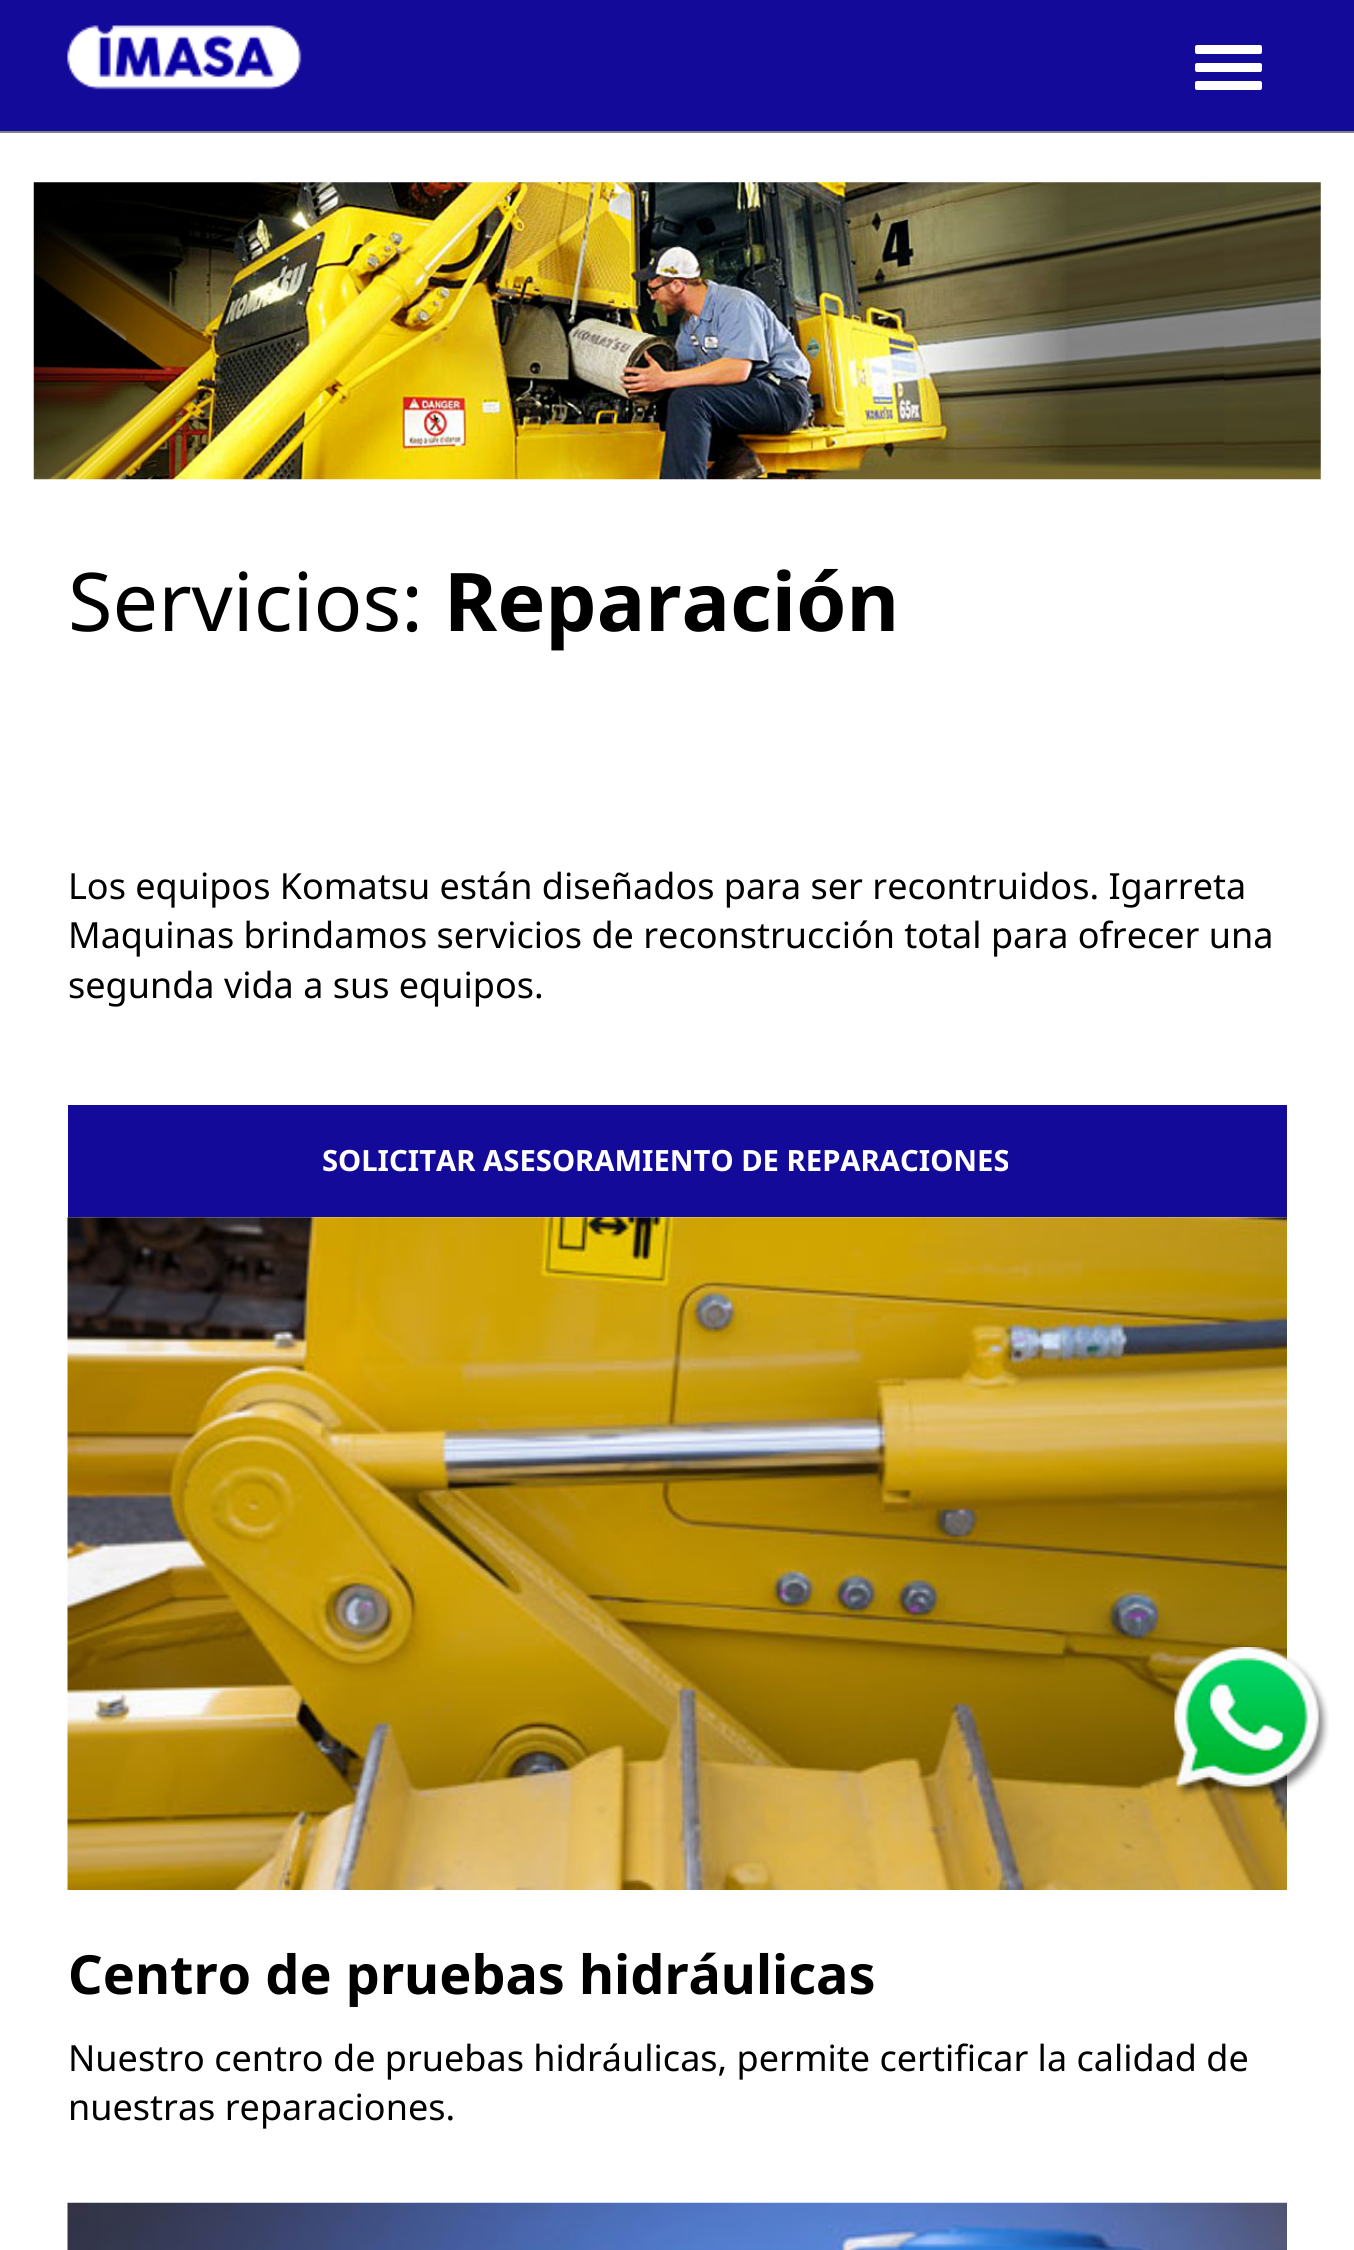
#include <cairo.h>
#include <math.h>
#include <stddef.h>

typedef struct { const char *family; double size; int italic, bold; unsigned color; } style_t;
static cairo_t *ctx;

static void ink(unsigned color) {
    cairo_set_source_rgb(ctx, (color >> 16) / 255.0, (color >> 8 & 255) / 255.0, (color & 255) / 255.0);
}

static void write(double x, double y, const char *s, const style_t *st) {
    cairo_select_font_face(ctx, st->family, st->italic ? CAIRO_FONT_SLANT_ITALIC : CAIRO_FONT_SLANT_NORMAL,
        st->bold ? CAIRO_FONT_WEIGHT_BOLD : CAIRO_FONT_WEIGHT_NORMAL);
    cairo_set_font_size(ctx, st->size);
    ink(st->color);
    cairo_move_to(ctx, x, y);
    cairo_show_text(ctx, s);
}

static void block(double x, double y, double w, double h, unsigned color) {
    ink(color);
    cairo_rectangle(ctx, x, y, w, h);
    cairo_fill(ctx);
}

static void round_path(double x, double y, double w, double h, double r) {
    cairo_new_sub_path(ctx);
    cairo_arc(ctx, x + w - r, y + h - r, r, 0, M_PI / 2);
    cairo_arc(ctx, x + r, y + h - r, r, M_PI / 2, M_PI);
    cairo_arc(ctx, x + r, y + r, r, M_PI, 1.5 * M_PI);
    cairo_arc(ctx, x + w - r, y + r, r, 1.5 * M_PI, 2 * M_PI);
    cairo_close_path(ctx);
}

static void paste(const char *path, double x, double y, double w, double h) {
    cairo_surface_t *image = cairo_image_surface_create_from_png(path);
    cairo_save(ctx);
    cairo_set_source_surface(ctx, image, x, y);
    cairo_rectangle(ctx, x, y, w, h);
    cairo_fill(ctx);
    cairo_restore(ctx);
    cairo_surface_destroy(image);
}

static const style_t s1 = {"Noto Sans", 81, 0, 0, 0x000000};
static const style_t s2 = {"Noto Sans", 81, 0, 1, 0x000000};
static const style_t s3 = {"Noto Sans", 36, 0, 0, 0x000000};
static const style_t s4 = {"Noto Sans", 29.25, 0, 1, 0xffffff};
static const style_t s5 = {"Noto Sans", 54, 0, 1, 0x000000};

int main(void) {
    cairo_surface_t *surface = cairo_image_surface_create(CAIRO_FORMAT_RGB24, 1354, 2250);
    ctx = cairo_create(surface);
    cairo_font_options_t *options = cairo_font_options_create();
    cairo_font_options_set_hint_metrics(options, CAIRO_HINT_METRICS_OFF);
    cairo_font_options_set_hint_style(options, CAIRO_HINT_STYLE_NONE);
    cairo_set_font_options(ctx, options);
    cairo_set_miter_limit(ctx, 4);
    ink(0xffffff);
    cairo_paint(ctx);
    block(0, 0, 1354, 131, 0x140a9a);
    paste("pic1.png", 67, 25, 235, 65);
    ink(0xffffff);
    round_path(1195, 45, 67, 9, 2);
    cairo_fill(ctx);
    round_path(1195, 63, 67, 9, 2);
    cairo_fill(ctx);
    round_path(1195, 81, 67, 9, 2);
    cairo_fill(ctx);
    block(0, 131, 1354, 2, 0x808080);
    paste("pic2.png", 33, 182, 1288, 298);
    write(68, 631, "Servicios:", &s1);
    write(444, 631, "Reparación", &s2);
    write(68, 899, "Los equipos Komatsu están diseñados para ser recontruidos. Igarreta", &s3);
    write(68, 948, "Maquinas brindamos servicios de reconstrucción total para ofrecer una", &s3);
    write(68, 998, "segunda vida a sus equipos.", &s3);
    block(68, 1105, 1219, 112, 0x140a9a);
    write(322, 1171, "SOLICITAR ASESORAMIENTO DE REPARACIONES", &s4);
    paste("pic3.png", 67, 1217, 1220, 673);
    write(68, 1994, "Centro de pruebas hidráulicas", &s5);
    write(68, 2071, "Nuestro centro de pruebas hidráulicas, permite certificar la calidad de", &s3);
    write(68, 2120, "nuestras reparaciones.", &s3);
    paste("pic4.png", 67, 2202, 1220, 48);
    paste("pic5.png", 1174, 1647, 155, 153);
    cairo_surface_write_to_png(surface, "screenshot.png");
    cairo_font_options_destroy(options);
    cairo_destroy(ctx);
    cairo_surface_destroy(surface);
    return 0;
}
